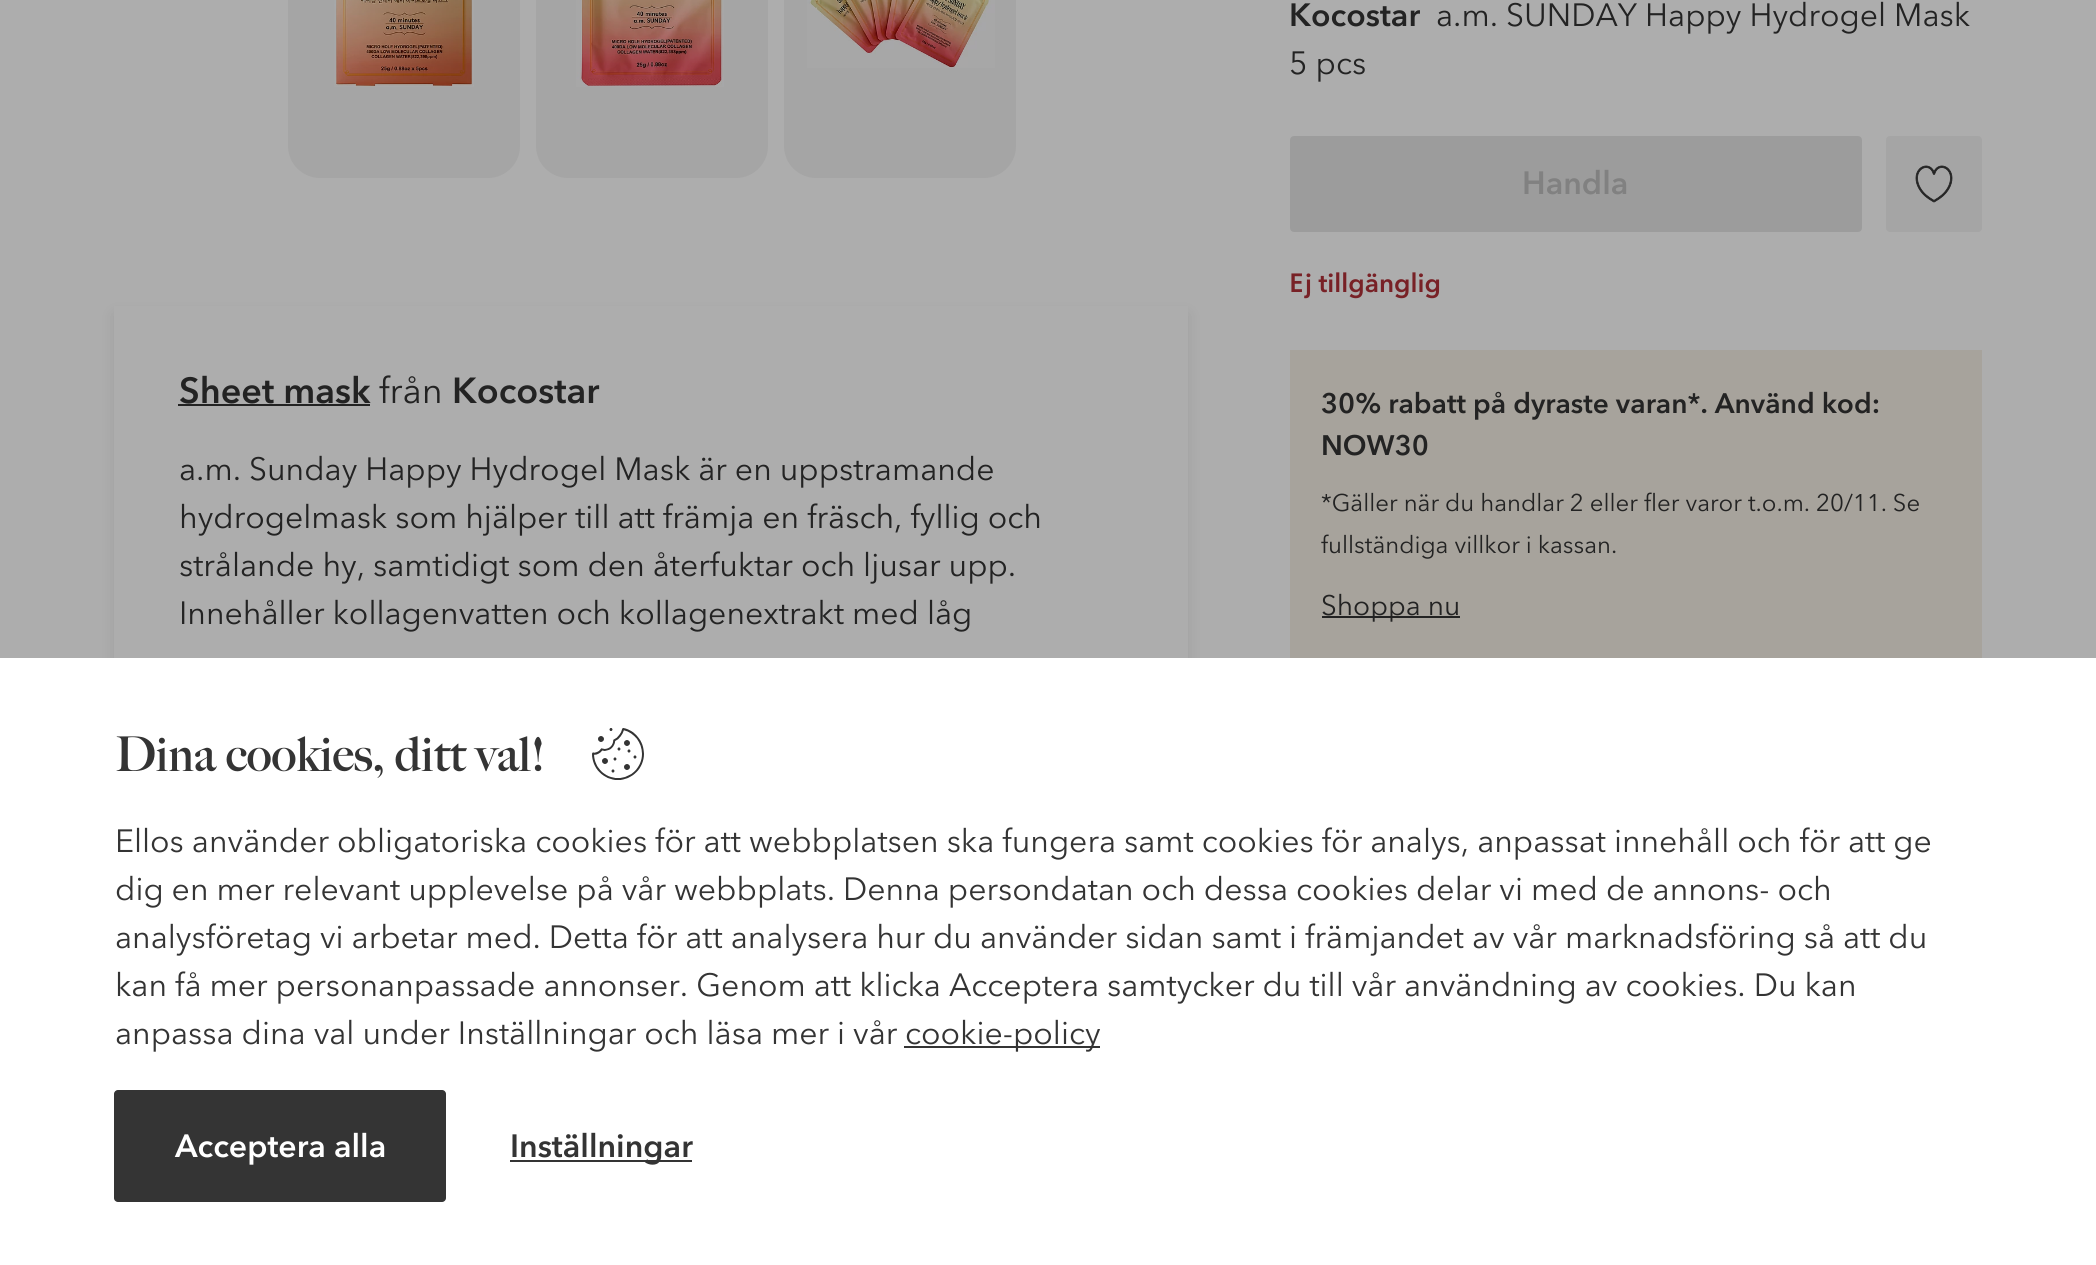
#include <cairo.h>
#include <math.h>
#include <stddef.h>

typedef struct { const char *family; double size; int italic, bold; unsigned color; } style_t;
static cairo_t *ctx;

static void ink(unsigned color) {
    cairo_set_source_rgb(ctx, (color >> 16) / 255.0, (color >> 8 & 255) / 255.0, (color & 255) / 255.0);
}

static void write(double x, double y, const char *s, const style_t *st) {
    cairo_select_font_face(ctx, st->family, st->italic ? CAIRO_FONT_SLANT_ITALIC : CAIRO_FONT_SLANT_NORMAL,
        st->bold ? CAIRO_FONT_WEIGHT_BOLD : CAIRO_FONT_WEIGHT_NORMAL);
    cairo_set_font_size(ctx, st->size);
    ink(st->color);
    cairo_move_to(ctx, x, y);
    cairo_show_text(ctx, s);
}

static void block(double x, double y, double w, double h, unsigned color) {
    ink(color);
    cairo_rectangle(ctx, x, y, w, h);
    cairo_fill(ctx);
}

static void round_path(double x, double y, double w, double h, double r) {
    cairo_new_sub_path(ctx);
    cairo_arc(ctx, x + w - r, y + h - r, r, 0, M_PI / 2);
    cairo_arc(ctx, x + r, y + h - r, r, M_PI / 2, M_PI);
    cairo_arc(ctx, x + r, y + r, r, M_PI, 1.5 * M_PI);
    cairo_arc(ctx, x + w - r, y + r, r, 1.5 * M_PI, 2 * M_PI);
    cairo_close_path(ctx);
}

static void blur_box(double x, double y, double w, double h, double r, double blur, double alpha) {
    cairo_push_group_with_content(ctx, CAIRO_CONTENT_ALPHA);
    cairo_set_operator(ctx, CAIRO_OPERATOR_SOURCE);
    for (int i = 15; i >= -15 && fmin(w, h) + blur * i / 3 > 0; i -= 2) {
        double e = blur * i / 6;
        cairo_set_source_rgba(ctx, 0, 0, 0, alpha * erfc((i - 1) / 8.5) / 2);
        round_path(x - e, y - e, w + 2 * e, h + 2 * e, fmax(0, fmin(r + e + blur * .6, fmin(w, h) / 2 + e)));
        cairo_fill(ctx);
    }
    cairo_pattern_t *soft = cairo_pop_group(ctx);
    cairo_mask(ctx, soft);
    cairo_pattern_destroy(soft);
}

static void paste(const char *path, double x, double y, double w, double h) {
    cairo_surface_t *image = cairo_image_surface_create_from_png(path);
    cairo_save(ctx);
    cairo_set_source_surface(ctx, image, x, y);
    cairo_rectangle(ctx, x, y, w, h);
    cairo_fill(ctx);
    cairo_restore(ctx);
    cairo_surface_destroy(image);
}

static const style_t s1 = {"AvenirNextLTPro", 32, 0, 1, 0x232323};
static const style_t s2 = {"AvenirNextLTPro", 32, 0, 0, 0x232323};
static const style_t s3 = {"AvenirNextLTPro", 32, 0, 1, 0x818181};
static const style_t s4 = {"Noto Sans SemiBold", 26, 0, 0, 0x782126};
static const style_t s5 = {"AvenirNextLTPro", 26, 0, 1, 0x782126};
static const style_t s6 = {"AvenirNextLTPro", 28, 0, 1, 0x232323};
static const style_t s7 = {"AvenirNextLTPro", 24, 0, 0, 0x232323};
static const style_t s8 = {"AvenirNextLTPro", 28, 0, 0, 0x232323};
static const style_t s9 = {"AvenirNextLTPro", 36, 0, 1, 0x232323};
static const style_t s10 = {"AvenirNextLTPro", 36, 0, 0, 0x232323};
static const style_t s11 = {"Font", 48, 0, 1, 0x343434};
static const style_t s12 = {"AvenirNextLTPro", 32, 0, 0, 0x343434};
static const style_t s13 = {"AvenirNextLTPro", 32, 0, 1, 0xffffff};
static const style_t s14 = {"AvenirNextLTPro", 32, 0, 1, 0x343434};

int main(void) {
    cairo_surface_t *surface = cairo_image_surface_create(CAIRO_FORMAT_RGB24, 2096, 1265);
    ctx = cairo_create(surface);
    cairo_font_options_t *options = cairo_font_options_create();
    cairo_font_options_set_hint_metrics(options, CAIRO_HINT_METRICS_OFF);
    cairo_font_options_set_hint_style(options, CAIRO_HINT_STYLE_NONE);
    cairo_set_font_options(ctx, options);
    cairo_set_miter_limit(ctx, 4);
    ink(0xadadad);
    cairo_paint(ctx);
    ink(0xa5a5a5);
    round_path(288, -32, 232, 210, 32);
    cairo_fill(ctx);
    paste("pic1.png", 334, 0, 140, 87);
    round_path(536, -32, 232, 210, 32);
    cairo_fill(ctx);
    paste("pic2.png", 576, 0, 148, 87);
    round_path(784, -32, 232, 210, 32);
    cairo_fill(ctx);
    paste("pic3.png", 807, 0, 188, 68);
    write(1289, 26, "Kocostar", &s1);
    write(1436, 26, "a.m. SUNDAY Happy Hydrogel Mask", &s2);
    write(1289, 74, "5 pcs", &s2);
    ink(0x9c9c9c);
    round_path(1291, 137, 570, 94, 3);
    cairo_fill_preserve(ctx);
    cairo_stroke(ctx);
    write(1522, 194, "Handla", &s3);
    ink(0xa5a5a5);
    round_path(1886, 136, 96, 96, 4);
    cairo_fill(ctx);
    paste("pic4.png", 1915, 165, 38, 38);
    write(1289, 292, "E", &s4);
    write(1305, 292, "j tillgänglig", &s5);
    block(1290, 350, 692, 308, 0xa7a39c);
    write(1321, 413, "30% rabatt på dyraste varan*. Använd kod:", &s6);
    write(1321, 455, "NOW30", &s6);
    write(1321, 511, "*Gäller när du handlar 2 eller fler varor t.o.m. 20/11. Se", &s7);
    write(1321, 553, "fullständiga villkor i kassan.", &s7);
    block(1322, 616, 138, 2, 0x232323);
    write(1321, 615, "Shoppa nu", &s8);
    cairo_save(ctx);
    cairo_set_fill_rule(ctx, CAIRO_FILL_RULE_EVEN_ODD);
    cairo_new_path(ctx);
    cairo_move_to(ctx, 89, 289);
    cairo_line_to(ctx, 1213, 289);
    cairo_line_to(ctx, 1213, 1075);
    cairo_line_to(ctx, 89, 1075);
    cairo_close_path(ctx);
    cairo_move_to(ctx, 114, 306);
    cairo_line_to(ctx, 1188, 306);
    cairo_line_to(ctx, 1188, 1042);
    cairo_line_to(ctx, 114, 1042);
    cairo_close_path(ctx);
    cairo_clip(ctx);
    ink(0x000000);
    blur_box(114, 314, 1074, 736, 0, 8, 0.08);
    cairo_restore(ctx);
    write(179, 403, "Sheet mask", &s9);
    block(178, 404, 192, 2, 0x232323);
    write(379, 403, "från", &s10);
    write(452, 403, "Kocostar", &s9);
    write(179, 480, "a.m. Sunday Happy Hydrogel Mask är en uppstramande", &s2);
    write(179, 528, "hydrogelmask som hjälper till att främja en fräsch, fyllig och", &s2);
    write(179, 576, "strålande hy, samtidigt som den återfuktar och ljusar upp.", &s2);
    write(179, 624, "Innehåller kollagenvatten och kollagenextrakt med låg", &s2);
    block(0, 658, 2096, 607, 0xffffff);
    write(115, 771, "Dina cookies, ditt val!", &s11);
    paste("pic5.png", 592, 728, 52, 52);
    write(115, 852, "Ellos använder obligatoriska cookies för att webbplatsen ska fungera samt cookies för analys, anpassat innehåll och för att ge", &s12);
    write(115, 900, "dig en mer relevant upplevelse på vår webbplats. Denna persondatan och dessa cookies delar vi med de annons- och", &s12);
    write(115, 948, "analysföretag vi arbetar med. Detta för att analysera hur du använder sidan samt i främjandet av vår marknadsföring så att du", &s12);
    write(115, 996, "kan få mer personanpassade annonser. Genom att klicka Acceptera samtycker du till vår användning av cookies. Du kan", &s12);
    write(115, 1044, "anpassa dina val under Inställningar och läsa mer i vår", &s12);
    block(904, 1046, 196, 2, 0x343434);
    write(905, 1044, "cookie-policy", &s12);
    round_path(114, 1090, 332, 112, 4);
    cairo_fill(ctx);
    write(175, 1157, "Acceptera alla", &s13);
    block(510, 1160, 182, 2, 0x343434);
    write(510, 1157, "Inställningar", &s14);
    cairo_surface_write_to_png(surface, "screenshot.png");
    cairo_font_options_destroy(options);
    cairo_destroy(ctx);
    cairo_surface_destroy(surface);
    return 0;
}
